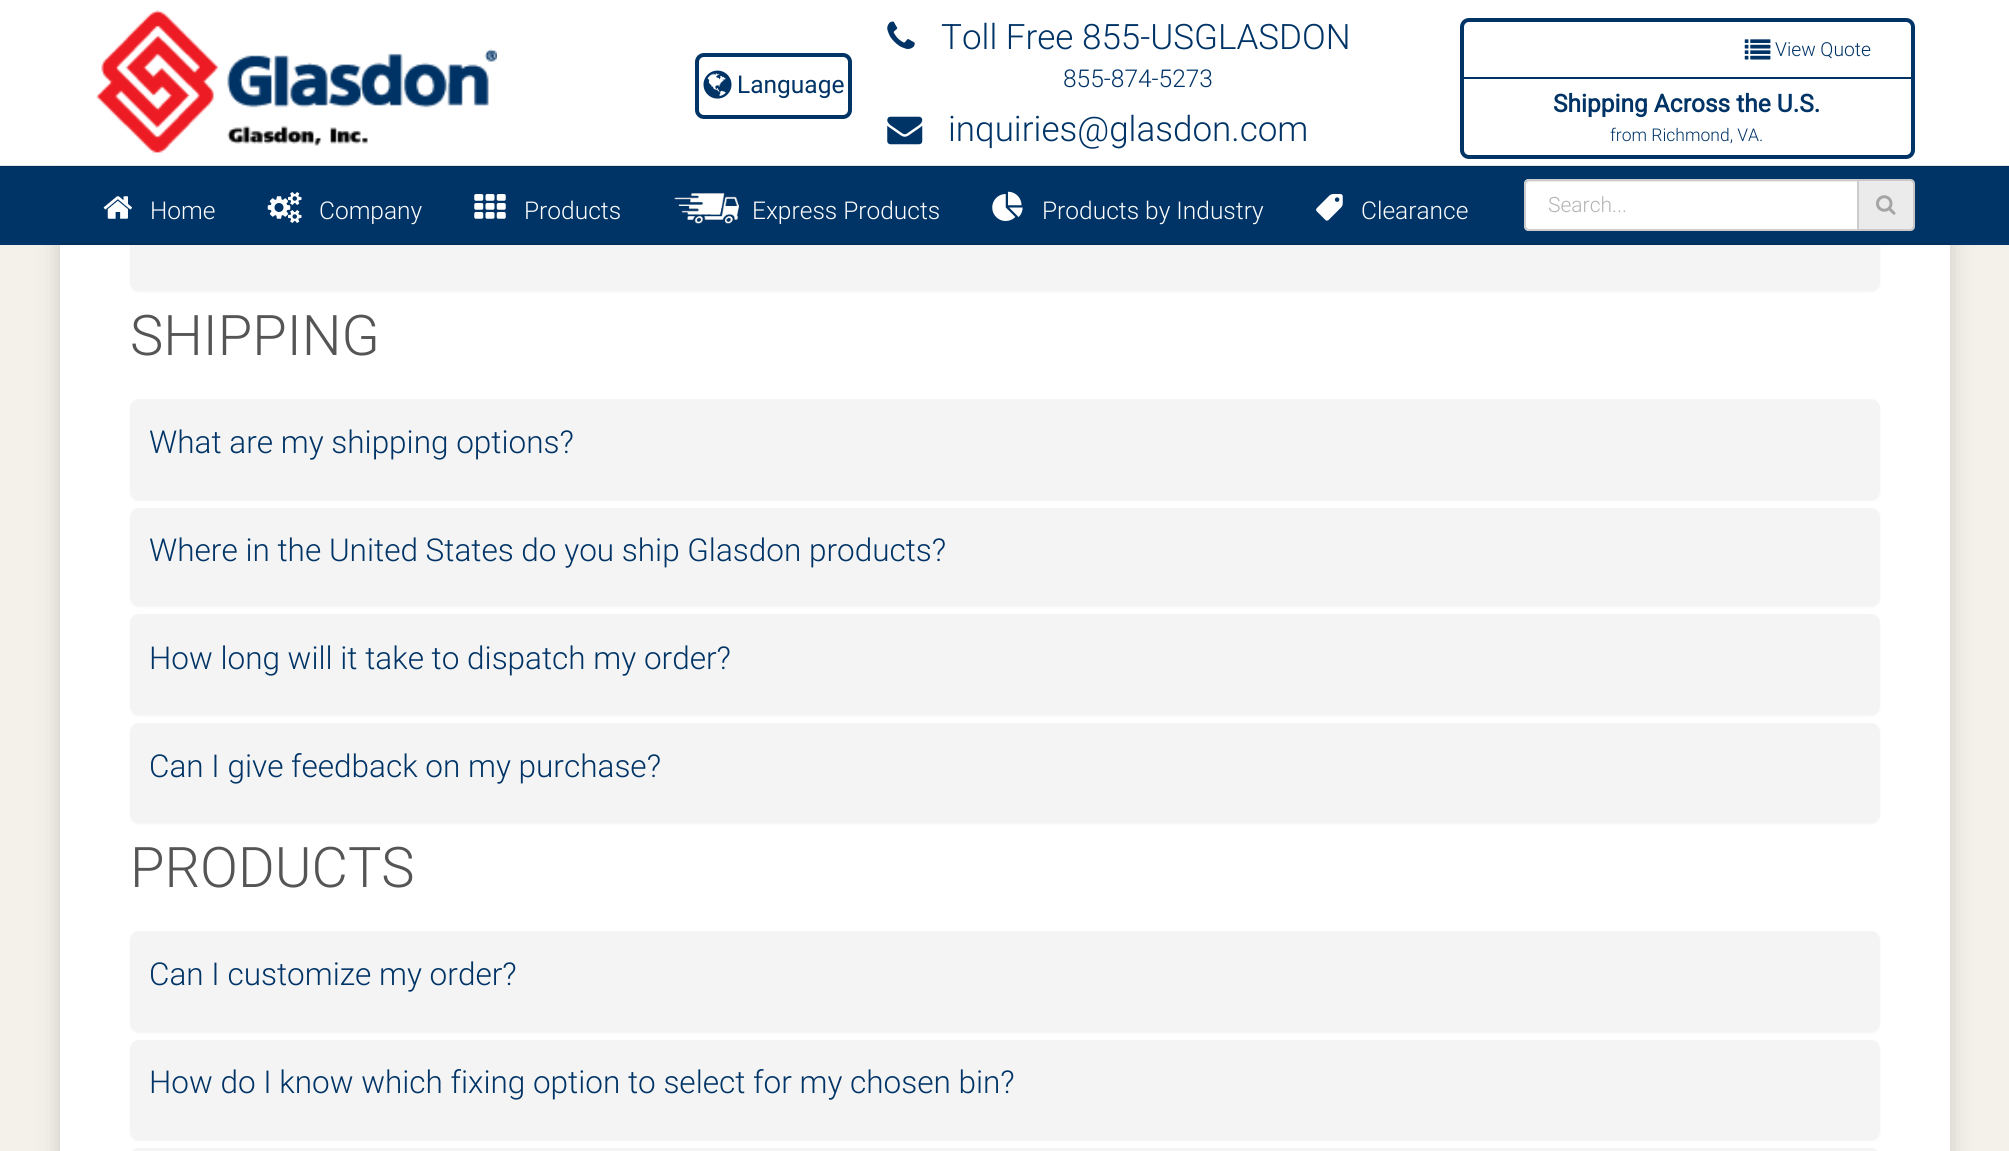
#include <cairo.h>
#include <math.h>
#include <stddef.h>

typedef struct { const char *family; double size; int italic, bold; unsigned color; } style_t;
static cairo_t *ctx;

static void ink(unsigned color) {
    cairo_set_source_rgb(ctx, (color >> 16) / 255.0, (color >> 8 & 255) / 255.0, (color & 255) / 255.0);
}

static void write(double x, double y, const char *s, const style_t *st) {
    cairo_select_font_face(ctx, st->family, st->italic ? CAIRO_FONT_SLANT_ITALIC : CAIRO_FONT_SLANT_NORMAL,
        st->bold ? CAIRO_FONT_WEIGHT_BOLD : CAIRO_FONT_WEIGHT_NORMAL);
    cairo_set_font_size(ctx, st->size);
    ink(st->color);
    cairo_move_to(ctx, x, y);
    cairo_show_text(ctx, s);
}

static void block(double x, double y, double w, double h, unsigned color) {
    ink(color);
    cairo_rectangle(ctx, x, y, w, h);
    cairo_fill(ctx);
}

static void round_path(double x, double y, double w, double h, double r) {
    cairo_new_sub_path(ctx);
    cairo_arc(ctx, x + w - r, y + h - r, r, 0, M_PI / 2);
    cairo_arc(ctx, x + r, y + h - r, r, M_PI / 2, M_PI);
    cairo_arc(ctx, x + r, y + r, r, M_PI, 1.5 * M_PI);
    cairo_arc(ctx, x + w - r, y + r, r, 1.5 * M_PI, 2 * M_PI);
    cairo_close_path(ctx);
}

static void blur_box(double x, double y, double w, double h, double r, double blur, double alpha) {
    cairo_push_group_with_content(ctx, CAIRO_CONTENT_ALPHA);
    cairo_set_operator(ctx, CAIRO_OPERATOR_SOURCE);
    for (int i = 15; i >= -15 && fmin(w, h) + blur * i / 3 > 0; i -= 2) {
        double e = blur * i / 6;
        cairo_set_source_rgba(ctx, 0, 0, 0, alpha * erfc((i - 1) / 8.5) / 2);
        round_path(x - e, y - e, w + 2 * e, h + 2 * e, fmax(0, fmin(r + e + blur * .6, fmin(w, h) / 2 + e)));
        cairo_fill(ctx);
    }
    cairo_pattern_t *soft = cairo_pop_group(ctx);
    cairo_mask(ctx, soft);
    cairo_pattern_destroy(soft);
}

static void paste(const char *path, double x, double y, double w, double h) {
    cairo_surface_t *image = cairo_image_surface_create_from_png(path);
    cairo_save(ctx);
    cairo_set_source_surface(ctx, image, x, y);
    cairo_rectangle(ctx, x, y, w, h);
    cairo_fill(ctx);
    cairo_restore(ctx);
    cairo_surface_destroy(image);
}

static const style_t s1 = {"Roboto", 24.5, 0, 0, 0x003366};
static const style_t s2 = {"Roboto Light", 35, 0, 0, 0x003366};
static const style_t s3 = {"Roboto Light", 24.5, 0, 0, 0x003366};
static const style_t s4 = {"Roboto Light", 19.25, 0, 0, 0x003366};
static const style_t s5 = {"Roboto", 24.5, 0, 1, 0x003366};
static const style_t s6 = {"Roboto Light", 17.5, 0, 0, 0x003366};
static const style_t s7 = {"Roboto Light", 24.5, 0, 0, 0xfcfcfc};
static const style_t s8 = {"Roboto Light", 21, 0, 0, 0xb3b3b3};
static const style_t s9 = {"Roboto Light", 56, 0, 0, 0x555555};
static const style_t s10 = {"Roboto Light", 31.5, 0, 0, 0x003366};

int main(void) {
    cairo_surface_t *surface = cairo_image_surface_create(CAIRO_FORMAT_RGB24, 2009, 1151);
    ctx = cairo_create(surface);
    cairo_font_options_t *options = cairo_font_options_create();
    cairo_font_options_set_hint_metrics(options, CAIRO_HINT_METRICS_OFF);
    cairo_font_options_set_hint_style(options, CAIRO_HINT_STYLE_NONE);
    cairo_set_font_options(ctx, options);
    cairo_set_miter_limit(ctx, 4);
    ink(0xf4f1ea);
    cairo_paint(ctx);
    ink(0x000000);
    blur_box(60, -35, 1890, 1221, 0, 11.5, 0.17);
    block(0, 0, 2009, 166, 0xffffff);
    block(60, 245, 1890, 906, 0xffffff);
    ink(0x000000);
    blur_box(130, 193, 1750, 99, 9, 1, 0.05);
    ink(0xf4f4f4);
    round_path(130, 191, 1750, 100, 9);
    cairo_fill(ctx);
    block(0, 166, 2009, 79, 0x003366);
    cairo_set_source_rgba(ctx, 0, 0, 0, 0.1);
    cairo_rectangle(ctx, 0, 165, 2009, 2);
    cairo_fill(ctx);
    block(60, 165, 1890, 1, 0xffffff);
    cairo_set_source_rgba(ctx, 0, 0, 0, 0.1);
    cairo_rectangle(ctx, 60, 165, 1890, 2);
    cairo_fill(ctx);
    paste("pic1.png", 96, 10, 401, 143);
    round_path(697, 55, 153, 62, 7);
    ink(0x003366);
    cairo_set_line_width(ctx, 4);
    cairo_stroke(ctx);
    paste("pic2.png", 703, 70, 29, 29);
    write(737, 93, "Language", &s1);
    paste("pic3.png", 887, 21, 28, 28);
    write(941, 49, "Toll Free 855-USGLASDON", &s2);
    write(1063, 87, "855-874-5273", &s3);
    paste("pic4.png", 887, 116, 36, 29);
    write(948, 141, "inquiries@glasdon.com", &s2);
    round_path(1462, 20, 451, 137, 7);
    cairo_stroke(ctx);
    paste("pic5.png", 1744, 39, 27, 21);
    write(1775, 56, "View Quote", &s4);
    block(1463, 77, 448, 2, 0x003366);
    write(1553, 112, "Shipping Across the U.S.", &s5);
    write(1610, 141, "from Richmond, VA.", &s6);
    block(60, 243, 1890, 2, 0x002e5c);
    paste("pic6.png", 103, 196, 29, 23);
    write(150, 219, "Home", &s7);
    paste("pic7.png", 267, 192, 35, 31);
    write(319, 219, "Company", &s7);
    paste("pic8.png", 474, 194, 32, 25);
    write(524, 219, "Products", &s7);
    paste("pic9.png", 674, 193, 65, 31);
    write(752, 219, "Express Products", &s7);
    paste("pic10.png", 992, 191, 31, 30);
    write(1042, 219, "Products by Industry", &s7);
    paste("pic11.png", 1316, 194, 27, 27);
    write(1361, 219, "Clearance", &s7);
    ink(0xebebeb);
    cairo_new_path(ctx);
    cairo_move_to(ctx, 1857, 179);
    cairo_line_to(ctx, 1910, 179);
    cairo_curve_to(ctx, 1913, 179, 1915, 181, 1915, 184);
    cairo_line_to(ctx, 1915, 226);
    cairo_curve_to(ctx, 1915, 229, 1913, 231, 1910, 231);
    cairo_line_to(ctx, 1857, 231);
    cairo_close_path(ctx);
    cairo_fill(ctx);
    cairo_new_path(ctx);
    cairo_move_to(ctx, 1858, 180);
    cairo_line_to(ctx, 1910, 180);
    cairo_curve_to(ctx, 1912, 180, 1914, 182, 1914, 184);
    cairo_line_to(ctx, 1914, 226);
    cairo_curve_to(ctx, 1914, 228, 1912, 230, 1910, 230);
    cairo_line_to(ctx, 1858, 230);
    cairo_close_path(ctx);
    cairo_set_source_rgba(ctx, 0, 0, 0, 0.15);
    cairo_set_line_width(ctx, 2);
    cairo_stroke(ctx);
    ink(0xffffff);
    cairo_new_path(ctx);
    cairo_move_to(ctx, 1529, 179);
    cairo_line_to(ctx, 1859, 179);
    cairo_line_to(ctx, 1859, 231);
    cairo_line_to(ctx, 1529, 231);
    cairo_curve_to(ctx, 1526, 231, 1524, 229, 1524, 226);
    cairo_line_to(ctx, 1524, 184);
    cairo_curve_to(ctx, 1524, 181, 1526, 179, 1529, 179);
    cairo_close_path(ctx);
    cairo_fill(ctx);
    ink(0xececec);
    cairo_new_path(ctx);
    cairo_move_to(ctx, 1530, 182);
    cairo_line_to(ctx, 1857, 182);
    cairo_line_to(ctx, 1857, 180);
    cairo_line_to(ctx, 1530, 180);
    cairo_curve_to(ctx, 1526, 180, 1526, 183, 1526, 186);
    cairo_curve_to(ctx, 1526, 184, 1528, 182, 1530, 182);
    cairo_close_path(ctx);
    cairo_fill(ctx);
    cairo_new_path(ctx);
    cairo_move_to(ctx, 1529, 180);
    cairo_line_to(ctx, 1858, 180);
    cairo_line_to(ctx, 1858, 230);
    cairo_line_to(ctx, 1529, 230);
    cairo_curve_to(ctx, 1527, 230, 1525, 228, 1525, 226);
    cairo_line_to(ctx, 1525, 184);
    cairo_curve_to(ctx, 1525, 182, 1527, 180, 1529, 180);
    cairo_close_path(ctx);
    ink(0xcccccc);
    cairo_stroke(ctx);
    write(1548, 212, "Search...", &s8);
    paste("pic12.png", 1876, 195, 20, 20);
    write(130, 355, "SHIPPING", &s9);
    ink(0x000000);
    blur_box(130, 401, 1750, 100, 9, 1, 0.05);
    ink(0xf4f4f4);
    round_path(130, 399, 1750, 100, 9);
    cairo_fill(ctx);
    write(149, 453, "What are my shipping options?", &s10);
    ink(0x000000);
    blur_box(130, 509, 1750, 98, 9, 1, 0.05);
    ink(0xf4f4f4);
    round_path(130, 508, 1750, 98, 9);
    cairo_fill(ctx);
    write(149, 561, "Where in the United States do you ship Glasdon products?", &s10);
    ink(0x000000);
    blur_box(130, 616, 1750, 100, 9, 1, 0.05);
    ink(0xf4f4f4);
    round_path(130, 614, 1750, 100, 9);
    cairo_fill(ctx);
    write(149, 669, "How long will it take to dispatch my order?", &s10);
    ink(0x000000);
    blur_box(130, 725, 1750, 99, 9, 1, 0.05);
    ink(0xf4f4f4);
    round_path(130, 723, 1750, 100, 9);
    cairo_fill(ctx);
    write(149, 777, "Can I give feedback on my purchase?", &s10);
    write(130, 887, "PRODUCTS", &s9);
    ink(0x000000);
    blur_box(130, 933, 1750, 100, 9, 1, 0.05);
    ink(0xf4f4f4);
    round_path(130, 931, 1750, 100, 9);
    cairo_fill(ctx);
    write(149, 985, "Can I customize my order?", &s10);
    ink(0x000000);
    blur_box(130, 1041, 1750, 100, 9, 1, 0.05);
    ink(0xf4f4f4);
    round_path(130, 1040, 1750, 99, 9);
    cairo_fill(ctx);
    write(149, 1093, "How do I know which fixing option to select for my chosen bin?", &s10);
    ink(0xf4f4f4);
    round_path(130, 1148, 1750, 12, 9);
    cairo_fill(ctx);
    cairo_surface_write_to_png(surface, "screenshot.png");
    cairo_font_options_destroy(options);
    cairo_destroy(ctx);
    cairo_surface_destroy(surface);
    return 0;
}
